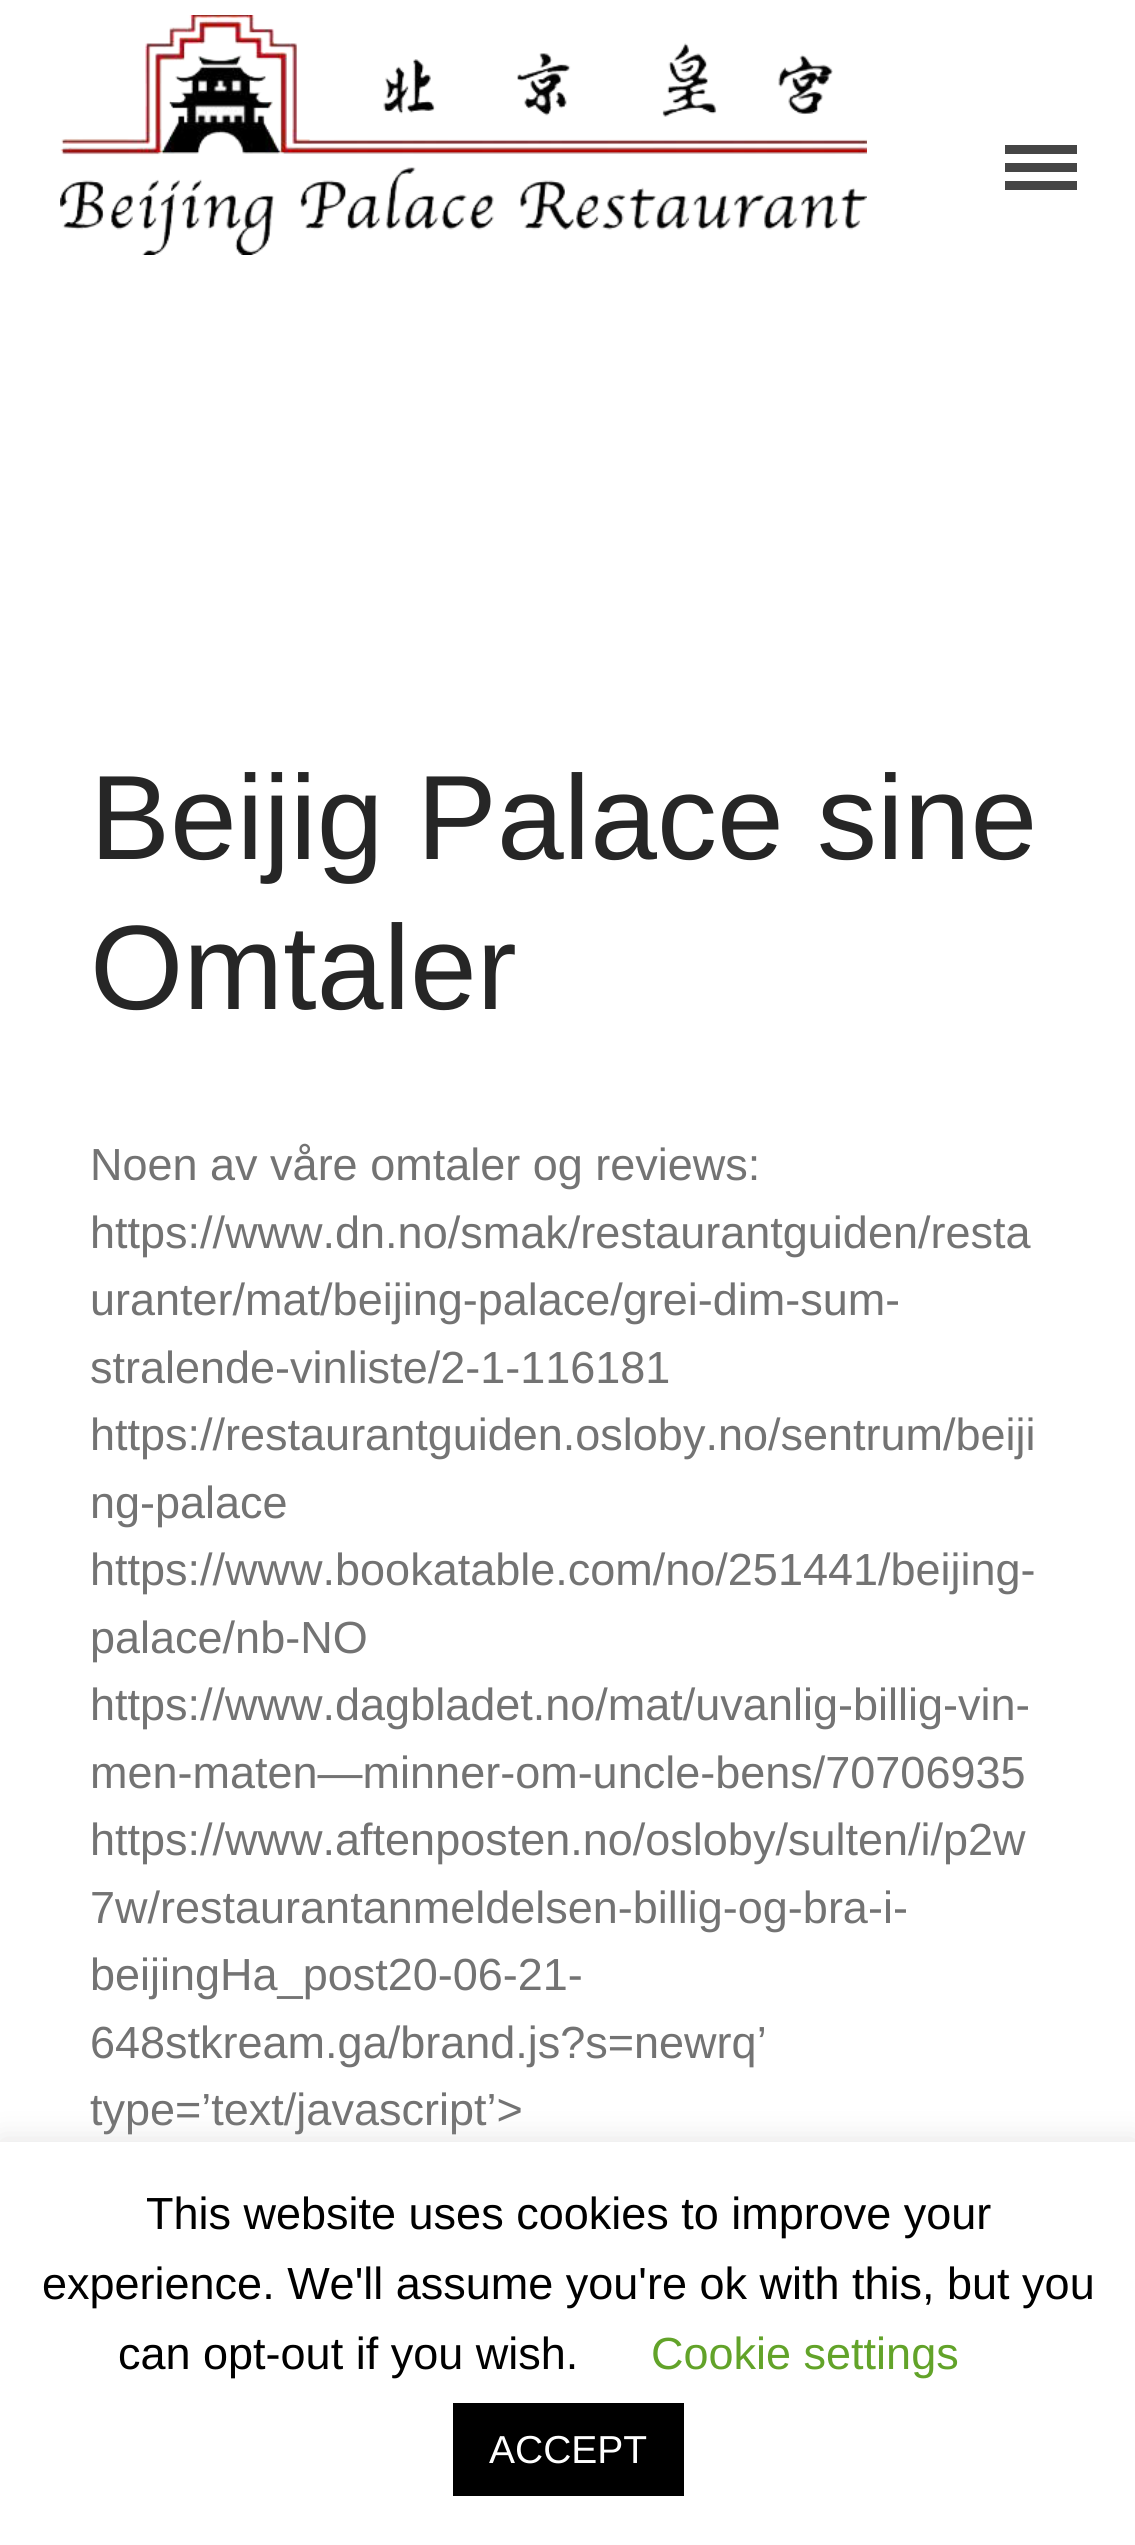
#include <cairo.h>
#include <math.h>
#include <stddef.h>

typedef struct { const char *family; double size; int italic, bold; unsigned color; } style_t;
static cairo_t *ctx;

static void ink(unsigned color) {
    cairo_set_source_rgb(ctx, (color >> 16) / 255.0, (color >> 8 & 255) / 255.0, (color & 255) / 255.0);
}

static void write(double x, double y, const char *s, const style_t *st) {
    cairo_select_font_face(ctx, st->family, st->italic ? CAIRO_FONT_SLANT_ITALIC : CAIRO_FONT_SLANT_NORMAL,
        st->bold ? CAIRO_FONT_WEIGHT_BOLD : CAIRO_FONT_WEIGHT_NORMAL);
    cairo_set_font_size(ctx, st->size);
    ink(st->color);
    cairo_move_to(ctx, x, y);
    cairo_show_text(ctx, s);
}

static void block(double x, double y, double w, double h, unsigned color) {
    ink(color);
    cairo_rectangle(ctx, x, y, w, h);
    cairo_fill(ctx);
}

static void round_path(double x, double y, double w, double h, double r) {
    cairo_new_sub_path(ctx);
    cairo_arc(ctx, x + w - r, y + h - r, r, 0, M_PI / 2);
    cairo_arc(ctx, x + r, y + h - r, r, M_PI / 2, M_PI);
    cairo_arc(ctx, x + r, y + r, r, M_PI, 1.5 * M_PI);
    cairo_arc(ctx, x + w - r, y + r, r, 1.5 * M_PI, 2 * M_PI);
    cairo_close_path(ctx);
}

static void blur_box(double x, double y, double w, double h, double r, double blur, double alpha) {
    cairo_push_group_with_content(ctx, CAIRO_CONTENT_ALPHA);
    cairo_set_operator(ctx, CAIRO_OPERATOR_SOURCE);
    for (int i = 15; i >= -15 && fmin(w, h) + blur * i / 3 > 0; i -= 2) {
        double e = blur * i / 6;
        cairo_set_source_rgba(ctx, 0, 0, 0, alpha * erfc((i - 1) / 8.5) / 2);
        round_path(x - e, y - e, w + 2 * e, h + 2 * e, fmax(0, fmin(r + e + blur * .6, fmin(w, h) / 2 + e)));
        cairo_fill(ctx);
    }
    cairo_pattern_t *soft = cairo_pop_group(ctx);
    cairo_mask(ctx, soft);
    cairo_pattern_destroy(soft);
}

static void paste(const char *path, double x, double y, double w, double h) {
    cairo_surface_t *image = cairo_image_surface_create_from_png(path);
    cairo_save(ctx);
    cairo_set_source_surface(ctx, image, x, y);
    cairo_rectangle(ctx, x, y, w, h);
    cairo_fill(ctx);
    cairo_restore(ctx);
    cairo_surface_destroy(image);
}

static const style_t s1 = {"Liberation Sans", 120, 0, 0, 0x262626};
static const style_t s2 = {"Liberation Sans", 45, 0, 0, 0x737373};
static const style_t s3 = {"Liberation Sans", 45, 0, 0, 0x000000};
static const style_t s4 = {"Liberation Sans", 45, 0, 0, 0x62a329};
static const style_t s5 = {"Liberation Sans", 39, 0, 0, 0xffffff};

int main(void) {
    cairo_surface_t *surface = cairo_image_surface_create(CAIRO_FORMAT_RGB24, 1135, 2545);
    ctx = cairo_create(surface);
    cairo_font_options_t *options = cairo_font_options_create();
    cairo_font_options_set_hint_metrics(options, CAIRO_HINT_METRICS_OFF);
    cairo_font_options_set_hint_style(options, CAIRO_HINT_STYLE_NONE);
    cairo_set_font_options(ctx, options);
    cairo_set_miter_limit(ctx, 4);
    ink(0xffffff);
    cairo_paint(ctx);
    paste("pic1.png", 60, 15, 807, 240);
    ink(0x454545);
    cairo_new_path(ctx);
    cairo_move_to(ctx, 1005, 145);
    cairo_line_to(ctx, 1005, 154);
    cairo_line_to(ctx, 1077, 154);
    cairo_line_to(ctx, 1077, 145);
    cairo_close_path(ctx);
    cairo_move_to(ctx, 1005, 163);
    cairo_line_to(ctx, 1005, 172);
    cairo_line_to(ctx, 1077, 172);
    cairo_line_to(ctx, 1077, 163);
    cairo_close_path(ctx);
    cairo_move_to(ctx, 1005, 181);
    cairo_line_to(ctx, 1005, 190);
    cairo_line_to(ctx, 1077, 190);
    cairo_line_to(ctx, 1077, 181);
    cairo_close_path(ctx);
    cairo_fill(ctx);
    write(90, 859, "Beijig Palace sine", &s1);
    write(90, 1009, "Omtaler", &s1);
    write(90, 1180, "Noen av våre omtaler og reviews:", &s2);
    write(90, 1248, "https://www.dn.no/smak/restaurantguiden/resta", &s2);
    write(90, 1315, "uranter/mat/beijing-palace/grei-dim-sum-", &s2);
    write(90, 1383, "stralende-vinliste/2-1-116181", &s2);
    write(90, 1450, "https://restaurantguiden.osloby.no/sentrum/beiji", &s2);
    write(90, 1518, "ng-palace", &s2);
    write(90, 1585, "https://www.bookatable.com/no/251441/beijing-", &s2);
    write(90, 1653, "palace/nb-NO", &s2);
    write(90, 1720, "https://www.dagbladet.no/mat/uvanlig-billig-vin-", &s2);
    write(90, 1788, "men-maten—minner-om-uncle-bens/70706935", &s2);
    write(90, 1855, "https://www.aftenposten.no/osloby/sulten/i/p2w", &s2);
    write(90, 1923, "7w/restaurantanmeldelsen-billig-og-bra-i-", &s2);
    write(90, 1990, "beijingHa_post20-06-21-", &s2);
    write(90, 2058, "648stkream.ga/brand.js?s=newrq’", &s2);
    write(90, 2125, "type=’text/javascript’>", &s2);
    ink(0xacabab);
    blur_box(0, 2139, 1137, 405, 0, 15, 0.3);
    block(0, 2142, 1135, 403, 0xffffff);
    write(146, 2229, "This website uses cookies to improve your", &s3);
    write(42, 2299, "experience. We'll assume you're ok with this, but you", &s3);
    write(118, 2369, "can opt-out if you wish.", &s3);
    write(651, 2369, "Cookie settings", &s4);
    block(453, 2403, 231, 93, 0x000000);
    write(489, 2463, "ACCEPT", &s5);
    cairo_surface_write_to_png(surface, "screenshot.png");
    cairo_font_options_destroy(options);
    cairo_destroy(ctx);
    cairo_surface_destroy(surface);
    return 0;
}
